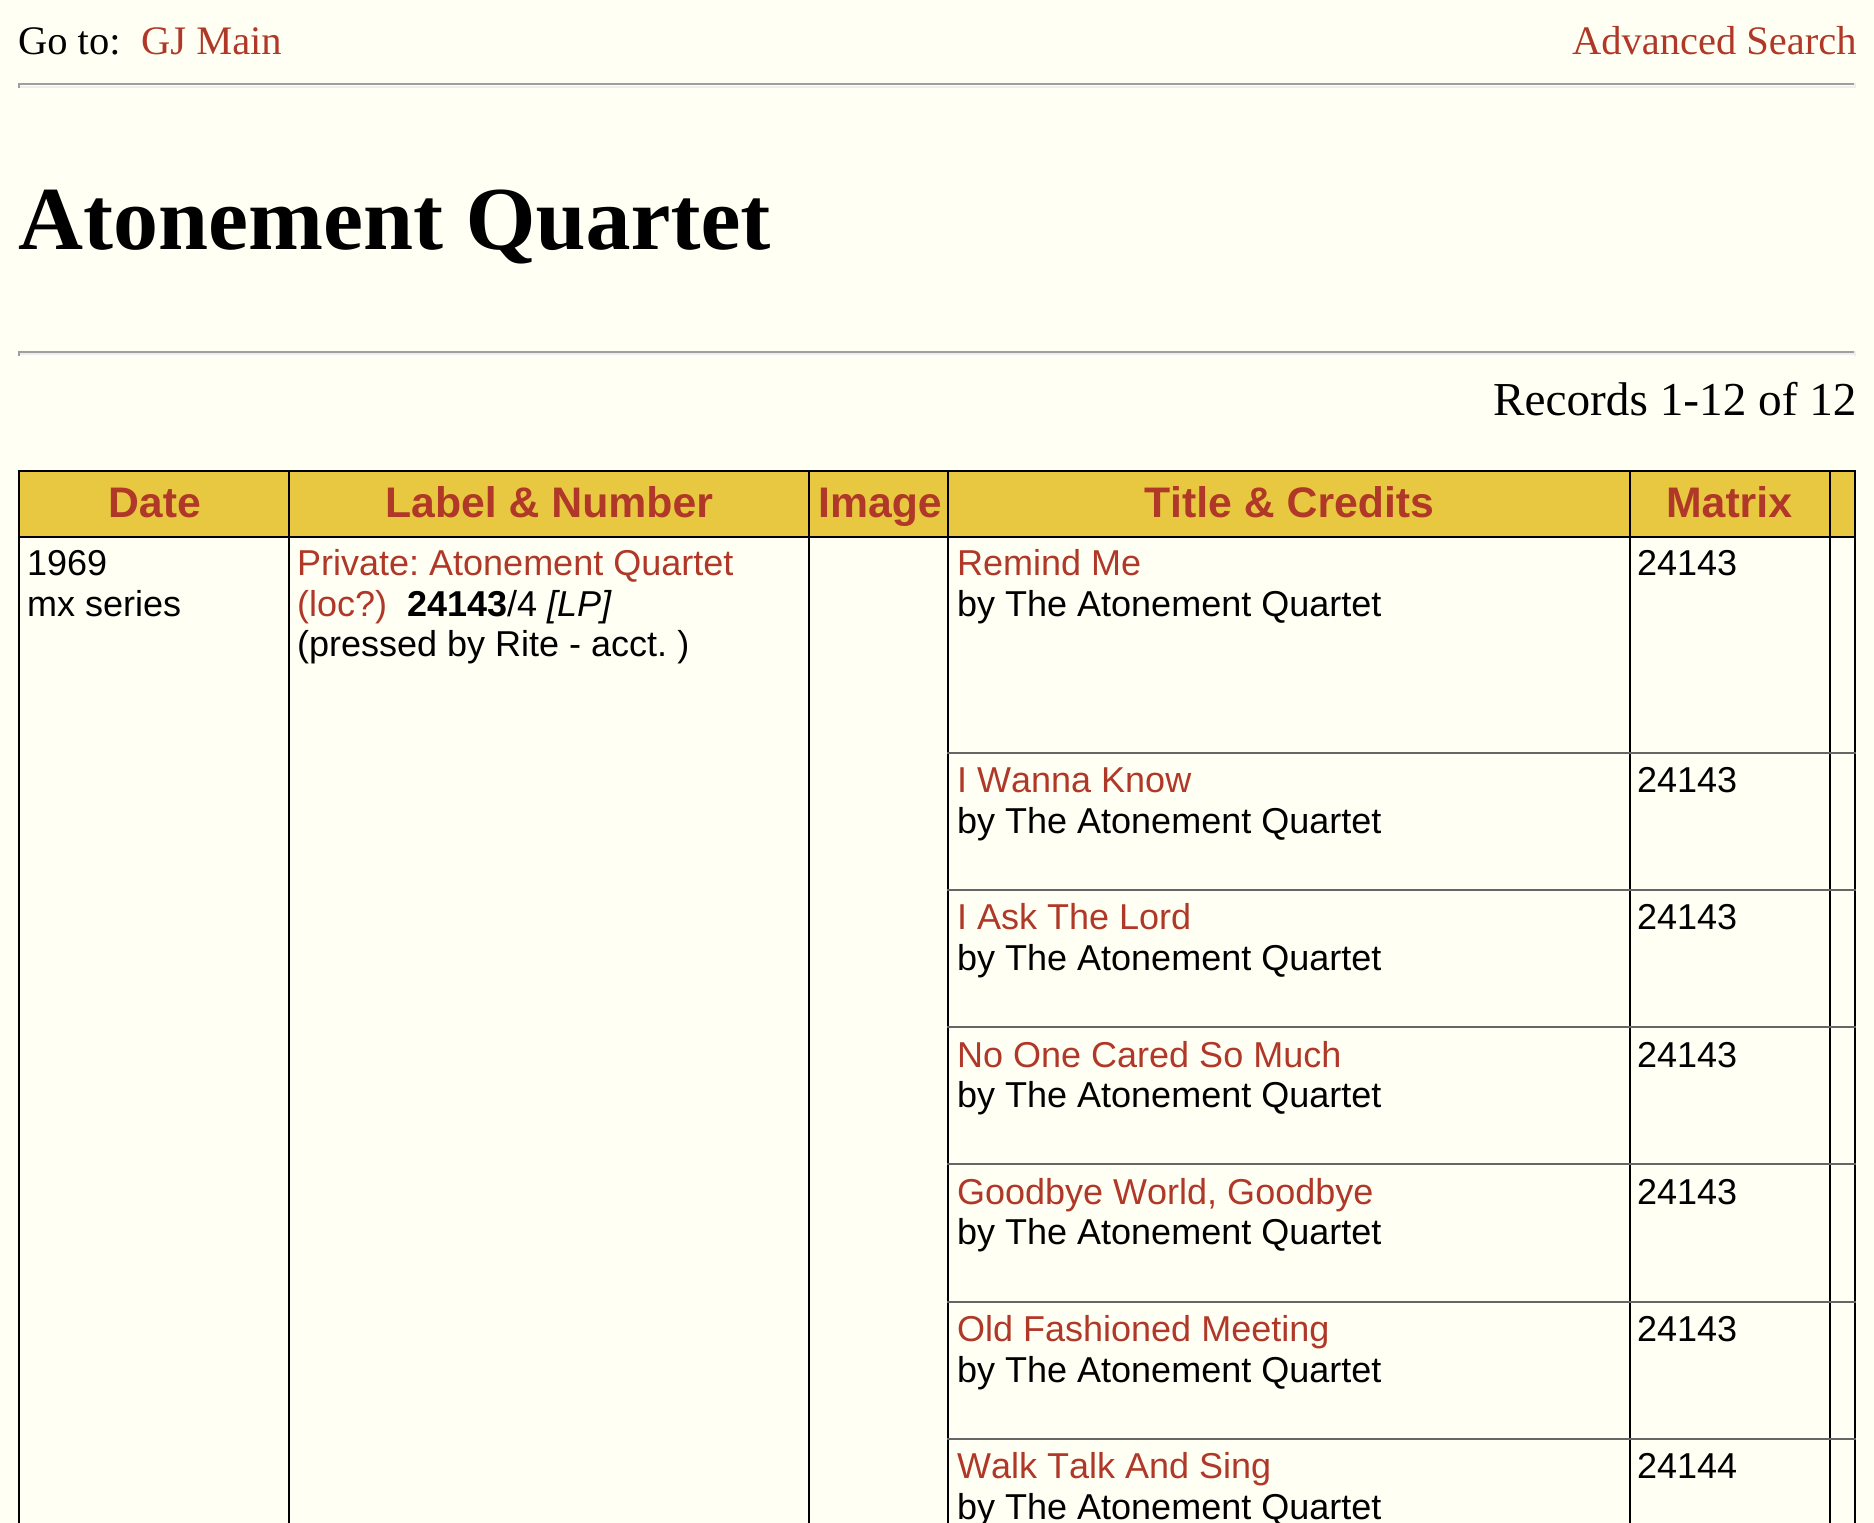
#include <cairo.h>
#include <math.h>
#include <stddef.h>

typedef struct { const char *family; double size; int italic, bold; unsigned color; } style_t;
static cairo_t *ctx;

static void ink(unsigned color) {
    cairo_set_source_rgb(ctx, (color >> 16) / 255.0, (color >> 8 & 255) / 255.0, (color & 255) / 255.0);
}

static void write(double x, double y, const char *s, const style_t *st) {
    cairo_select_font_face(ctx, st->family, st->italic ? CAIRO_FONT_SLANT_ITALIC : CAIRO_FONT_SLANT_NORMAL,
        st->bold ? CAIRO_FONT_WEIGHT_BOLD : CAIRO_FONT_WEIGHT_NORMAL);
    cairo_set_font_size(ctx, st->size);
    ink(st->color);
    cairo_move_to(ctx, x, y);
    cairo_show_text(ctx, s);
}

static void block(double x, double y, double w, double h, unsigned color) {
    ink(color);
    cairo_rectangle(ctx, x, y, w, h);
    cairo_fill(ctx);
}

static const style_t s1 = {"Liberation Serif", 40.5, 0, 0, 0x000000};
static const style_t s2 = {"Liberation Serif", 40.5, 0, 0, 0xb03828};
static const style_t s3 = {"Liberation Serif", 90, 0, 1, 0x000000};
static const style_t s4 = {"Liberation Serif", 47.25, 0, 0, 0x000000};
static const style_t s5 = {"Liberation Sans", 42.75, 0, 1, 0xb03828};
static const style_t s6 = {"Liberation Sans", 36, 0, 0, 0x000000};
static const style_t s7 = {"Liberation Sans", 36, 0, 0, 0xb03828};
static const style_t s8 = {"Liberation Sans", 36, 0, 1, 0x000000};
static const style_t s9 = {"Liberation Sans", 36, 1, 0, 0x000000};

int main(void) {
    cairo_surface_t *surface = cairo_image_surface_create(CAIRO_FORMAT_RGB24, 1874, 1523);
    ctx = cairo_create(surface);
    cairo_font_options_t *options = cairo_font_options_create();
    cairo_font_options_set_hint_metrics(options, CAIRO_HINT_METRICS_OFF);
    cairo_font_options_set_hint_style(options, CAIRO_HINT_STYLE_NONE);
    cairo_set_font_options(ctx, options);
    cairo_set_miter_limit(ctx, 4);
    ink(0xfffff4);
    cairo_paint(ctx);
    write(18, 54, "Go to:", &s1);
    write(141, 54, "GJ Main", &s2);
    write(1572, 54, "Advanced Search", &s2);
    block(18, 83, 1838, 2, 0x9f9f9f);
    block(1854, 83, 2, 5, 0xeeeeee);
    block(18, 86, 1838, 2, 0xeeeeee);
    block(18, 83, 2, 5, 0x9f9f9f);
    write(18, 249, "Atonement Quartet", &s3);
    block(18, 351, 1838, 2, 0x9f9f9f);
    block(1854, 351, 2, 5, 0xeeeeee);
    block(18, 353, 1838, 2, 0xeeeeee);
    block(18, 351, 2, 5, 0x9f9f9f);
    write(1493, 415, "Records 1-12 of 12", &s4);
    block(18, 470, 1838, 2, 0x000000);
    block(1854, 470, 2, 1053, 0x000000);
    block(18, 470, 2, 1053, 0x000000);
    block(18, 536, 1838, 2, 0x000000);
    block(288, 470, 2, 1053, 0x000000);
    block(808, 470, 2, 1053, 0x000000);
    block(810, 472, 819, 64, 0xe8c840);
    block(947, 470, 2, 1053, 0x000000);
    block(1629, 470, 2, 1053, 0x000000);
    block(1829, 470, 2, 1053, 0x000000);
    block(20, 472, 268, 64, 0xe8c840);
    write(108, 517, "Date", &s5);
    block(290, 472, 518, 64, 0xe8c840);
    write(385, 517, "Label & Number", &s5);
    write(818, 517, "Image", &s5);
    write(1144, 517, "Title & Credits", &s5);
    block(1631, 472, 198, 64, 0xe8c840);
    write(1666, 517, "Matrix", &s5);
    block(1831, 472, 23, 64, 0xe8c840);
    write(27, 575, "1969", &s6);
    write(27, 616, "mx series", &s6);
    write(297, 575, "Private: Atonement Quartet", &s7);
    write(297, 616, "(loc?)", &s7);
    write(407, 616, "24143", &s8);
    write(507, 616, "/4", &s6);
    write(547, 616, "[LP]", &s9);
    write(297, 656, "(pressed by Rite - acct. )", &s6);
    write(957, 575, "Remind Me", &s7);
    write(957, 616, "by The Atonement Quartet", &s6);
    write(1637, 575, "24143", &s6);
    block(947, 752, 909, 2, 0x666666);
    write(957, 792, "I Wanna Know", &s7);
    write(957, 833, "by The Atonement Quartet", &s6);
    write(1637, 792, "24143", &s6);
    block(947, 889, 909, 2, 0x666666);
    write(957, 929, "I Ask The Lord", &s7);
    write(957, 970, "by The Atonement Quartet", &s6);
    write(1637, 929, "24143", &s6);
    block(947, 1026, 909, 2, 0x666666);
    write(957, 1067, "No One Cared So Much", &s7);
    write(957, 1107, "by The Atonement Quartet", &s6);
    write(1637, 1067, "24143", &s6);
    block(947, 1163, 909, 2, 0x666666);
    write(957, 1204, "Goodbye World, Goodbye", &s7);
    write(957, 1244, "by The Atonement Quartet", &s6);
    write(1637, 1204, "24143", &s6);
    block(947, 1301, 909, 2, 0x666666);
    write(957, 1341, "Old Fashioned Meeting", &s7);
    write(957, 1382, "by The Atonement Quartet", &s6);
    write(1637, 1341, "24143", &s6);
    block(947, 1438, 909, 2, 0x666666);
    write(957, 1478, "Walk Talk And Sing", &s7);
    write(957, 1519, "by The Atonement Quartet", &s6);
    write(1637, 1478, "24144", &s6);
    cairo_surface_write_to_png(surface, "screenshot.png");
    cairo_font_options_destroy(options);
    cairo_destroy(ctx);
    cairo_surface_destroy(surface);
    return 0;
}
